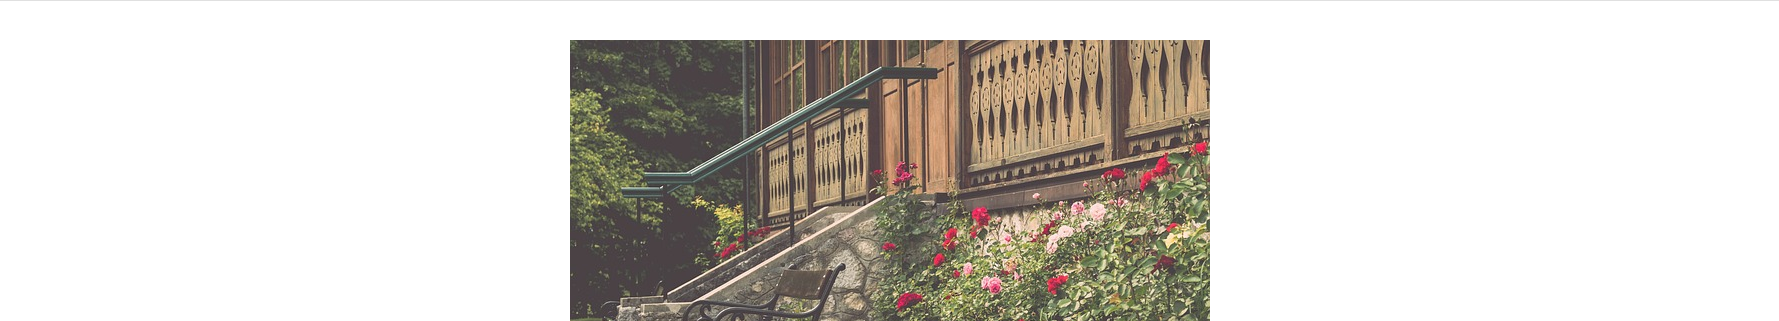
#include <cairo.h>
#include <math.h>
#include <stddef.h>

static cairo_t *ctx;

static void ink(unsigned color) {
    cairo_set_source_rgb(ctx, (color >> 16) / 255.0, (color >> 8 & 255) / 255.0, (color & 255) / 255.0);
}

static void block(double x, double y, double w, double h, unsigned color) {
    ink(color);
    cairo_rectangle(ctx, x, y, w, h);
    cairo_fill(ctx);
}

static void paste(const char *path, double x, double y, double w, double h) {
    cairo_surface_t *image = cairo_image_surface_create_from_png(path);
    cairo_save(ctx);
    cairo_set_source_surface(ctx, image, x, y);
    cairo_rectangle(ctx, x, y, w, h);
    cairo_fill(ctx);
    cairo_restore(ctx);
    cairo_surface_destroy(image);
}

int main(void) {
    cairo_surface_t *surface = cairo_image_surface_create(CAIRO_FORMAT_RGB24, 1779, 321);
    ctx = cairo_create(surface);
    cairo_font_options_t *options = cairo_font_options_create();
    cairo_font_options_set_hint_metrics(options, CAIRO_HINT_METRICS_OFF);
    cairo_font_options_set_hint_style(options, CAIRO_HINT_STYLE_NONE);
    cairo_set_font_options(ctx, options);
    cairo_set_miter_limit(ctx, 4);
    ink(0xffffff);
    cairo_paint(ctx);
    block(0, 0, 1779, 1, 0xe0e0e0);
    paste("pic1.png", 570, 40, 640, 281);
    cairo_surface_write_to_png(surface, "screenshot.png");
    cairo_font_options_destroy(options);
    cairo_destroy(ctx);
    cairo_surface_destroy(surface);
    return 0;
}
